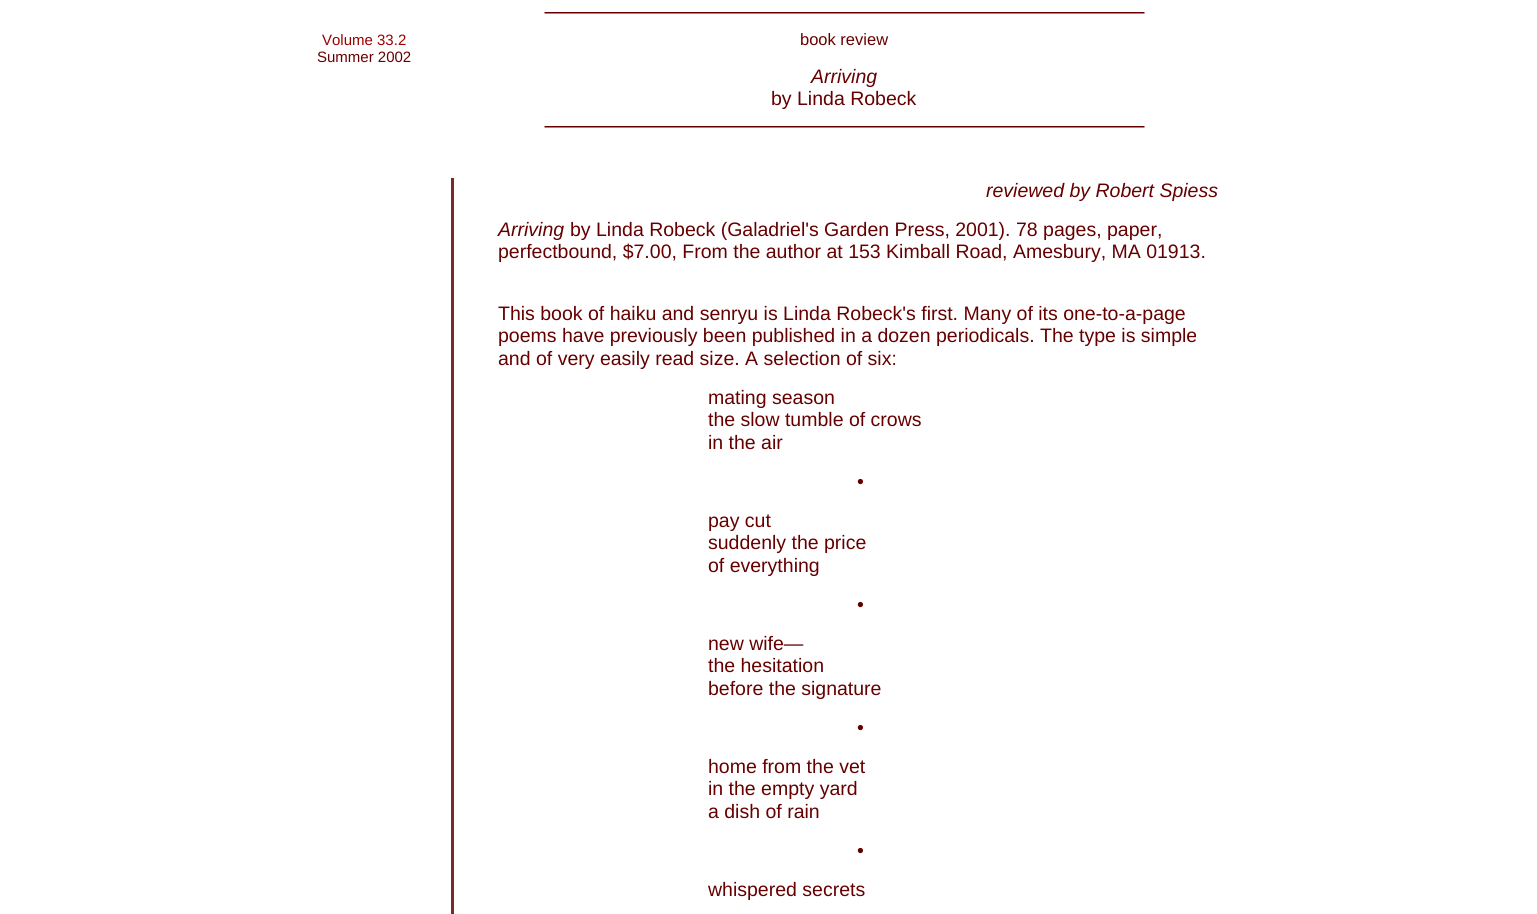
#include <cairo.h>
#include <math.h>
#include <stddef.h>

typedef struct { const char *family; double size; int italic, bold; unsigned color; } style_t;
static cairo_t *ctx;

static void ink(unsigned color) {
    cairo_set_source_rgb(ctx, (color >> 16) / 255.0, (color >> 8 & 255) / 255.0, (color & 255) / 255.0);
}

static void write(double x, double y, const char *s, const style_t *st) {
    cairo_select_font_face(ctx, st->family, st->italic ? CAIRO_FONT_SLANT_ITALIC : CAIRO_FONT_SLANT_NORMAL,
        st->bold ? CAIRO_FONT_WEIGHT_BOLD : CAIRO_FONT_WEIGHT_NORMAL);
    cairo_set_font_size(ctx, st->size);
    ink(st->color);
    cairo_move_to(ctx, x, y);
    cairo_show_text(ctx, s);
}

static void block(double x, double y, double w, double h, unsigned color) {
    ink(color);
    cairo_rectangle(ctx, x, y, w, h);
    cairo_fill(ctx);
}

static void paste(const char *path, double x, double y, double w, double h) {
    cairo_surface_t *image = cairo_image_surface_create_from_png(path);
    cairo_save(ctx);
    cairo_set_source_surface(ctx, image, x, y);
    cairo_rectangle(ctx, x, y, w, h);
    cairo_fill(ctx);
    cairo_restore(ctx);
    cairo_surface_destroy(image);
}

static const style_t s1 = {"Liberation Sans", 15, 0, 0, 0x990000};
static const style_t s2 = {"Liberation Sans", 15, 0, 0, 0x660000};
static const style_t s3 = {"Liberation Sans", 16.5, 0, 0, 0x660000};
static const style_t s4 = {"Liberation Sans", 19.5, 1, 0, 0x660000};
static const style_t s5 = {"Liberation Sans", 19.5, 0, 0, 0x660000};

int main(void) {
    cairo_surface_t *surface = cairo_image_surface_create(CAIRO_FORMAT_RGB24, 1537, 914);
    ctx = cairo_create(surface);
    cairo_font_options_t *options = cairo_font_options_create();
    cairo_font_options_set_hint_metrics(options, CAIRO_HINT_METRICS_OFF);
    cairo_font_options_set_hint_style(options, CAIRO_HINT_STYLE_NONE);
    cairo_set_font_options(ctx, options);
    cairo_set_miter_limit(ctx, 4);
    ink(0xffffff);
    cairo_paint(ctx);
    write(322, 45, "Volume 33.2", &s1);
    write(317, 62, "Summer 2002", &s2);
    paste("pic1.png", 544, 12, 601, 2);
    write(800, 45, "book review", &s3);
    write(811, 83, "Arriving", &s4);
    write(771, 105, "by Linda Robeck", &s5);
    paste("pic1.png", 544, 126, 601, 2);
    block(451, 178, 3, 736, 0x7e2929);
    write(986, 197, "reviewed by Robert Spiess", &s4);
    write(498, 236, "Arriving", &s4);
    write(570, 236, "by Linda Robeck (Galadriel's Garden Press, 2001). 78 pages, paper,", &s5);
    write(498, 258, "perfectbound, $7.00, From the author at 153 Kimball Road, Amesbury, MA 01913.", &s5);
    write(498, 320, "This book of haiku and senryu is Linda Robeck's first. Many of its one-to-a-page", &s5);
    write(498, 342, "poems have previously been published in a dozen periodicals. The type is simple", &s5);
    write(498, 365, "and of very easily read size. A selection of six:", &s5);
    write(708, 404, "mating season", &s5);
    write(708, 426, "the slow tumble of crows", &s5);
    write(708, 449, "in the air", &s5);
    write(857, 488, "•", &s5);
    write(708, 527, "pay cut", &s5);
    write(708, 549, "suddenly the price", &s5);
    write(708, 572, "of everything", &s5);
    write(857, 611, "•", &s5);
    write(708, 650, "new wife—", &s5);
    write(708, 672, "the hesitation", &s5);
    write(708, 695, "before the signature", &s5);
    write(857, 734, "•", &s5);
    write(708, 773, "home from the vet", &s5);
    write(708, 795, "in the empty yard", &s5);
    write(708, 818, "a dish of rain", &s5);
    write(857, 857, "•", &s5);
    write(708, 896, "whispered secrets", &s5);
    cairo_surface_write_to_png(surface, "screenshot.png");
    cairo_font_options_destroy(options);
    cairo_destroy(ctx);
    cairo_surface_destroy(surface);
    return 0;
}
